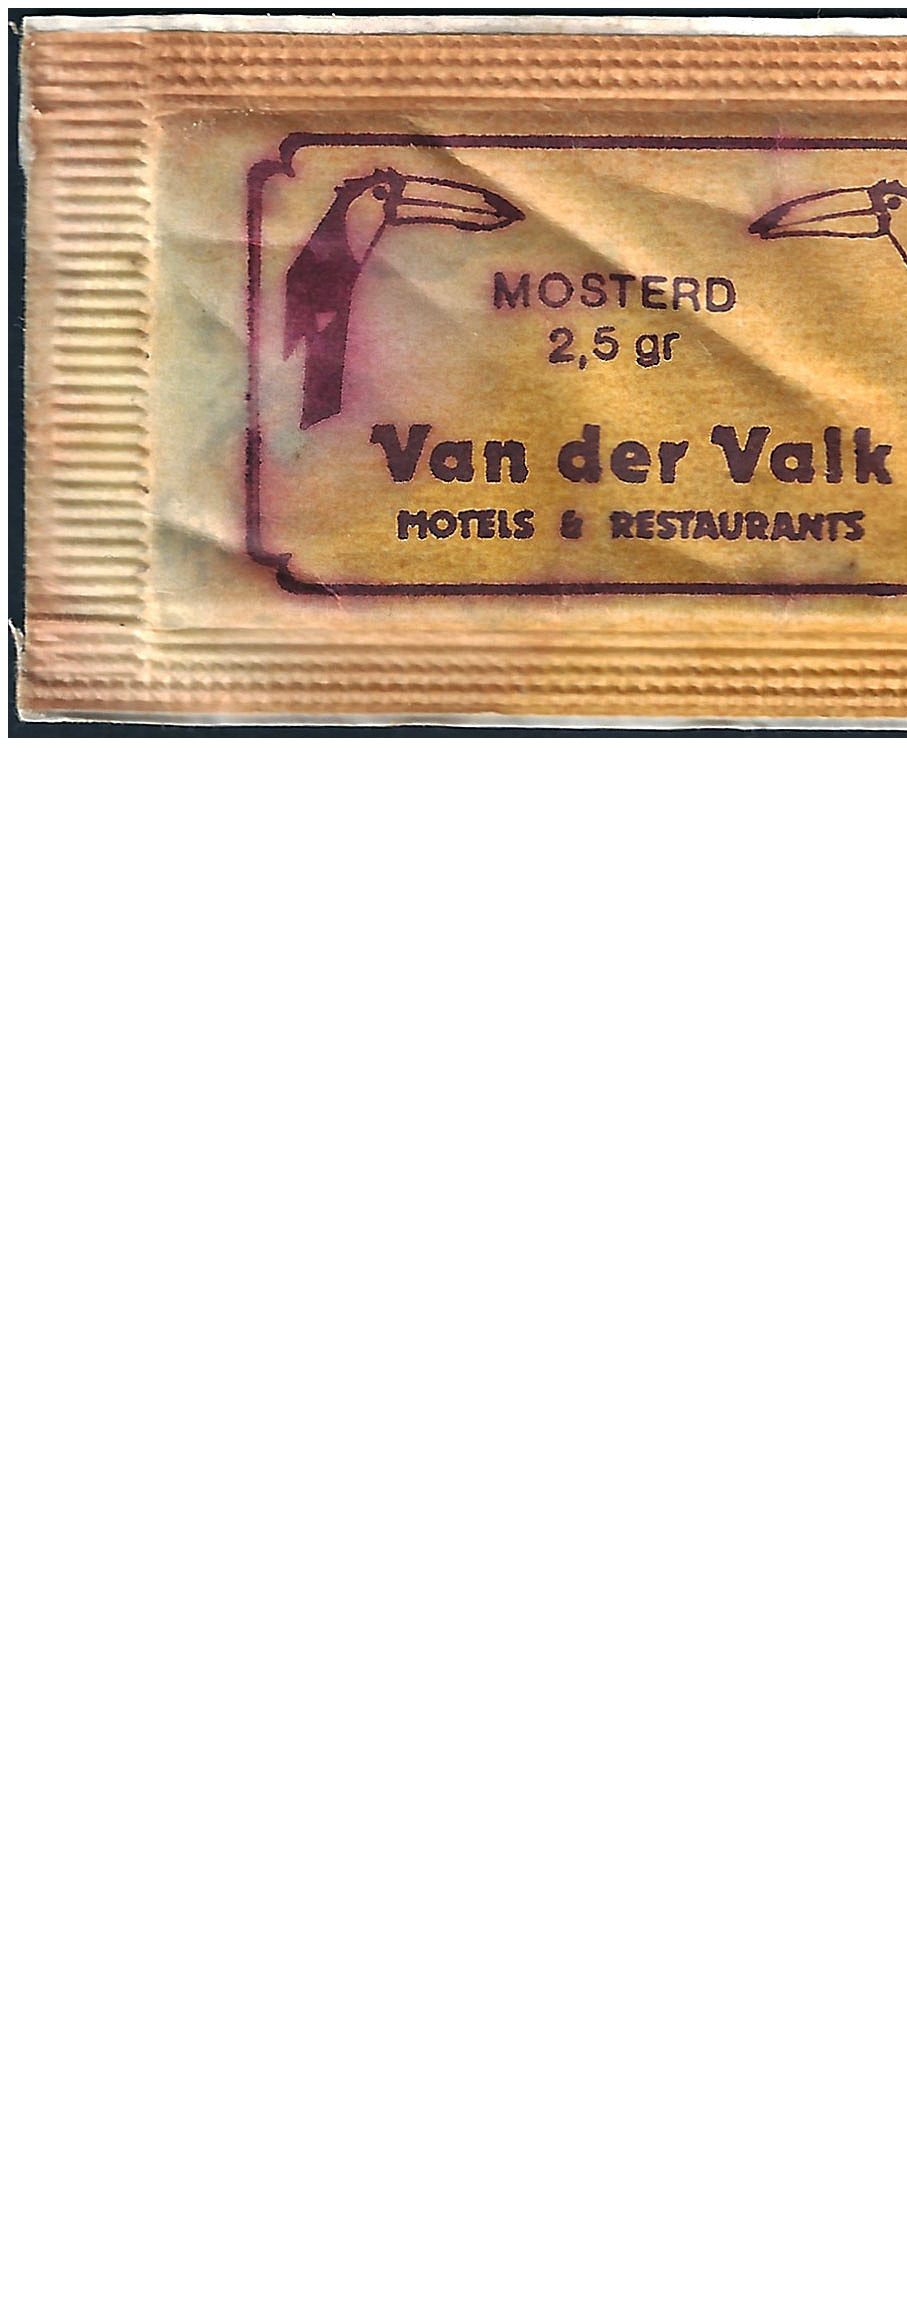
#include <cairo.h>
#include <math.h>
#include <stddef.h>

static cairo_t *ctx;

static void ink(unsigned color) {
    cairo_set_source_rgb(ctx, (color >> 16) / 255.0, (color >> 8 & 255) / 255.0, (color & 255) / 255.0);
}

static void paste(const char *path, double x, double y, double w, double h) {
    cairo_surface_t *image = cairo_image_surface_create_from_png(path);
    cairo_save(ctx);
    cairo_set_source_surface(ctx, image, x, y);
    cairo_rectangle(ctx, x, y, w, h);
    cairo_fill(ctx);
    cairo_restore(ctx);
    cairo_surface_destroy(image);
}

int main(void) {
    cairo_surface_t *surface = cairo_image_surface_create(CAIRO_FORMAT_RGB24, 907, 2304);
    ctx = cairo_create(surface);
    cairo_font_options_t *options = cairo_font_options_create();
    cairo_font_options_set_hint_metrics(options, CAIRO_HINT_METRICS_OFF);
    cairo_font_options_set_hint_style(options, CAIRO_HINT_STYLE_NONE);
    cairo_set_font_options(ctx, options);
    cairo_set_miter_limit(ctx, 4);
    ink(0xffffff);
    cairo_paint(ctx);
    paste("pic1.png", 8, 8, 899, 730);
    cairo_surface_write_to_png(surface, "screenshot.png");
    cairo_font_options_destroy(options);
    cairo_destroy(ctx);
    cairo_surface_destroy(surface);
    return 0;
}
